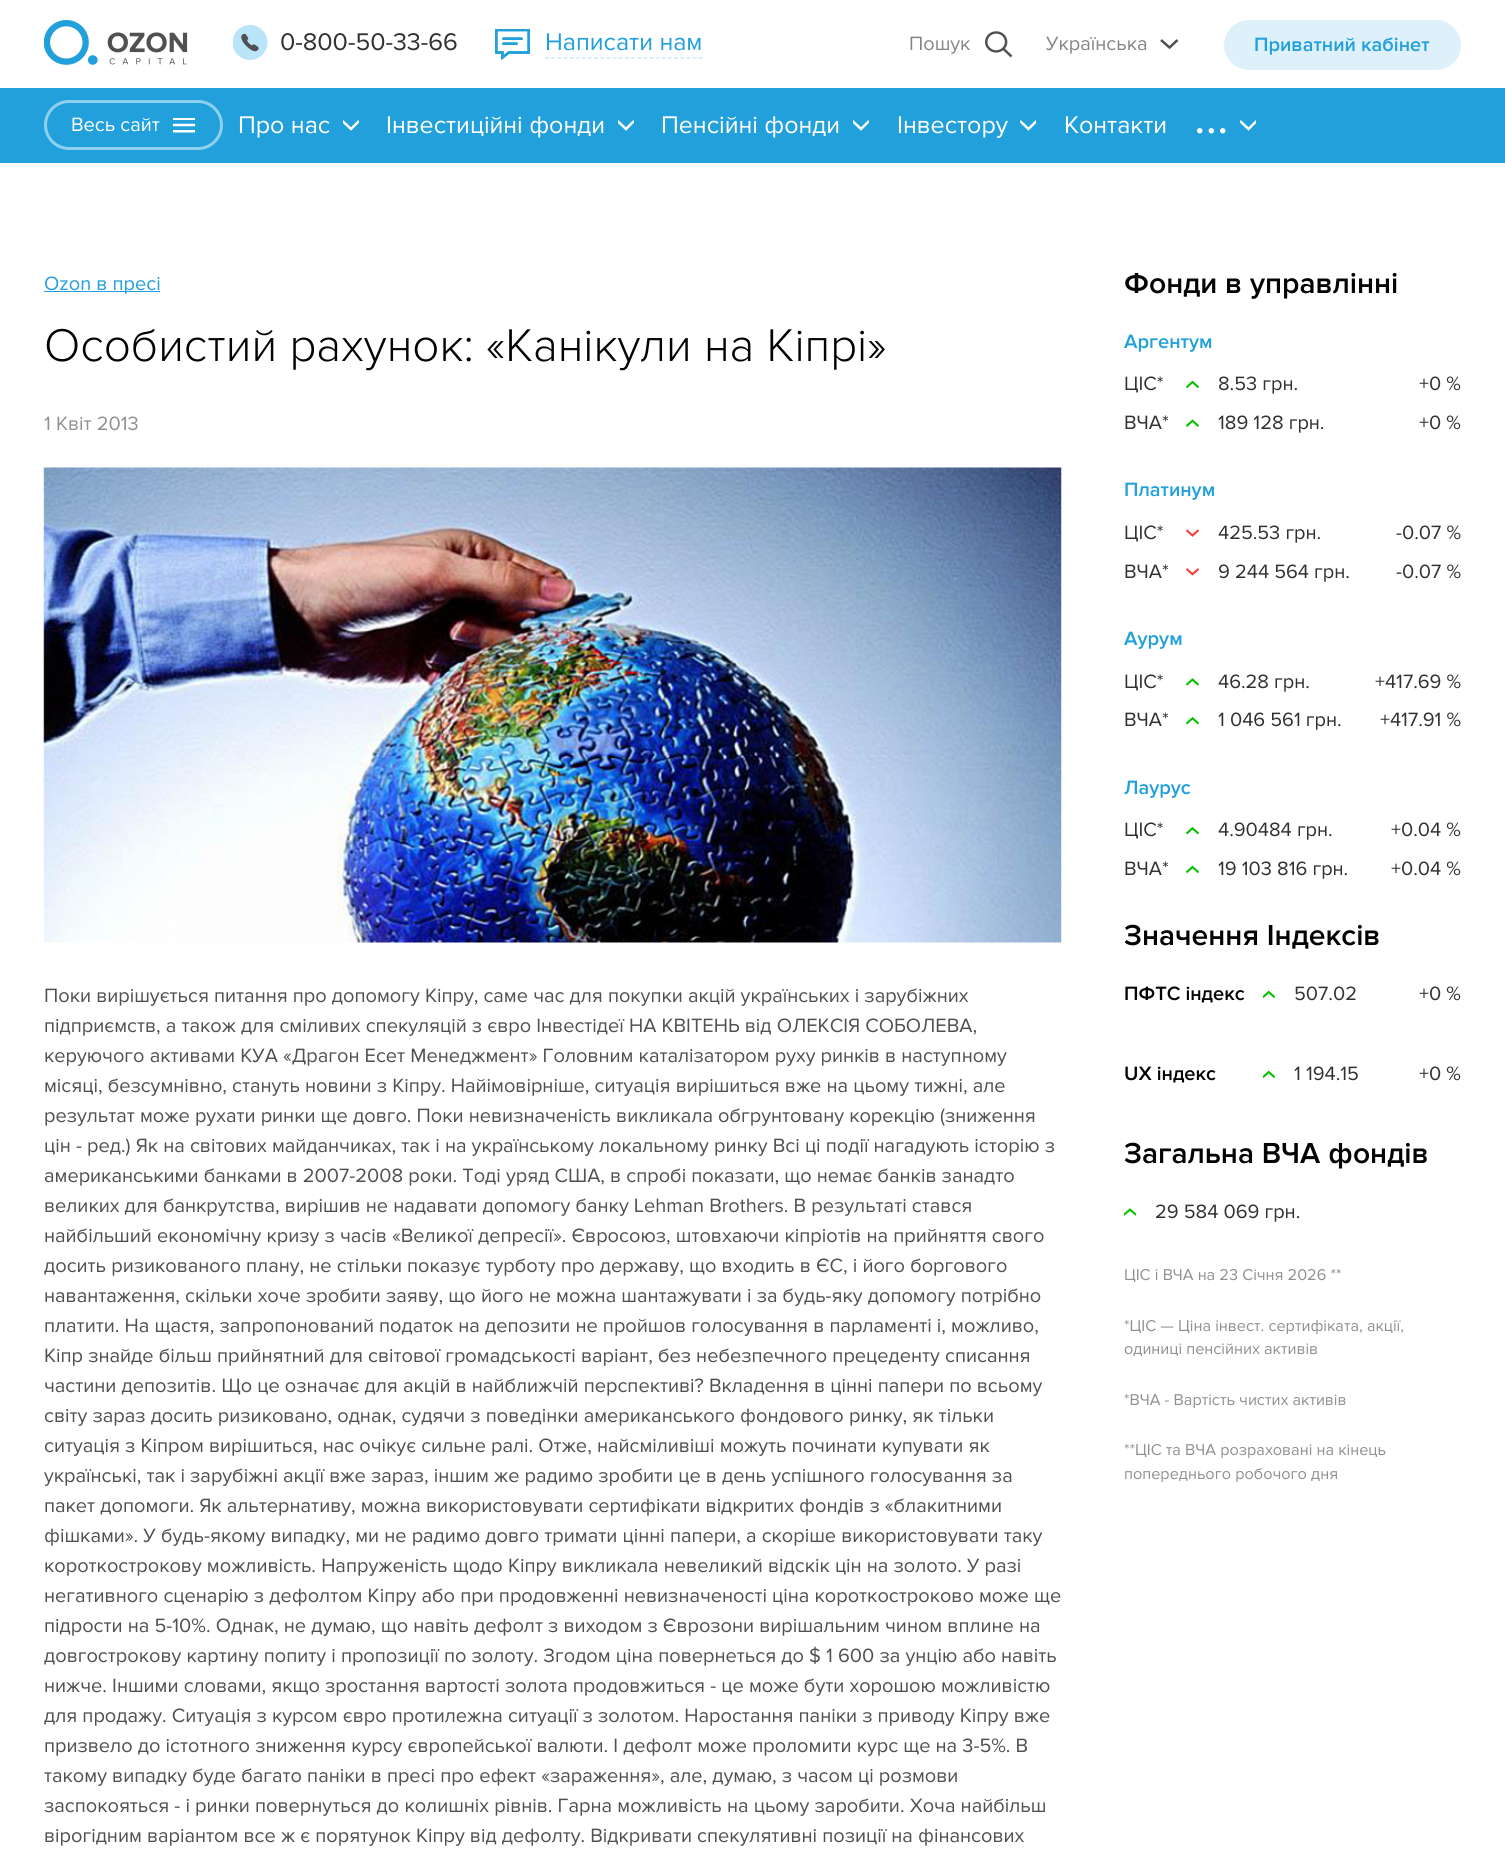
#include <cairo.h>
#include <math.h>
#include <stddef.h>

typedef struct { const char *family; double size; int italic, bold; unsigned color; } style_t;
static cairo_t *ctx;

static void ink(unsigned color) {
    cairo_set_source_rgb(ctx, (color >> 16) / 255.0, (color >> 8 & 255) / 255.0, (color & 255) / 255.0);
}

static void write(double x, double y, const char *s, const style_t *st) {
    cairo_select_font_face(ctx, st->family, st->italic ? CAIRO_FONT_SLANT_ITALIC : CAIRO_FONT_SLANT_NORMAL,
        st->bold ? CAIRO_FONT_WEIGHT_BOLD : CAIRO_FONT_WEIGHT_NORMAL);
    cairo_set_font_size(ctx, st->size);
    ink(st->color);
    cairo_move_to(ctx, x, y);
    cairo_show_text(ctx, s);
}

static void block(double x, double y, double w, double h, unsigned color) {
    ink(color);
    cairo_rectangle(ctx, x, y, w, h);
    cairo_fill(ctx);
}

static void round_path(double x, double y, double w, double h, double r) {
    cairo_new_sub_path(ctx);
    cairo_arc(ctx, x + w - r, y + h - r, r, 0, M_PI / 2);
    cairo_arc(ctx, x + r, y + h - r, r, M_PI / 2, M_PI);
    cairo_arc(ctx, x + r, y + r, r, M_PI, 1.5 * M_PI);
    cairo_arc(ctx, x + w - r, y + r, r, 1.5 * M_PI, 2 * M_PI);
    cairo_close_path(ctx);
}

static void paste(const char *path, double x, double y, double w, double h) {
    cairo_surface_t *image = cairo_image_surface_create_from_png(path);
    cairo_save(ctx);
    cairo_set_source_surface(ctx, image, x, y);
    cairo_rectangle(ctx, x, y, w, h);
    cairo_fill(ctx);
    cairo_restore(ctx);
    cairo_surface_destroy(image);
}

static const style_t s1 = {"Proxima Nova", 25, 0, 0, 0x313131};
static const style_t s2 = {"Proxima Nova", 25, 0, 0, 0x21a0db};
static const style_t s3 = {"Proxima Nova", 20, 0, 0, 0x858585};
static const style_t s4 = {"Proxima Nova SemiBold", 20, 0, 0, 0x21a0db};
static const style_t s5 = {"Proxima Nova", 20, 0, 0, 0xffffff};
static const style_t s6 = {"Proxima Nova", 25, 0, 0, 0xffffff};
static const style_t s7 = {"Proxima Nova", 50, 0, 0, 0xffffff};
static const style_t s8 = {"Proxima Nova", 20, 0, 0, 0x21a0db};
static const style_t s9 = {"Proxima Nova Light", 47.5, 0, 0, 0x030303};
static const style_t s10 = {"Proxima Nova", 20, 0, 0, 0x909090};
static const style_t s11 = {"Proxima Nova", 20, 0, 0, 0x505050};
static const style_t s12 = {"Proxima Nova SemiBold", 30, 0, 0, 0x030303};
static const style_t s13 = {"Proxima Nova", 20, 0, 0, 0x313131};
static const style_t s14 = {"Proxima Nova SemiBold", 20, 0, 0, 0x030303};
static const style_t s15 = {"Proxima Nova", 16.25, 0, 0, 0x909090};

int main(void) {
    cairo_surface_t *surface = cairo_image_surface_create(CAIRO_FORMAT_RGB24, 1505, 1849);
    ctx = cairo_create(surface);
    cairo_font_options_t *options = cairo_font_options_create();
    cairo_font_options_set_hint_metrics(options, CAIRO_HINT_METRICS_OFF);
    cairo_font_options_set_hint_style(options, CAIRO_HINT_STYLE_NONE);
    cairo_set_font_options(ctx, options);
    cairo_set_miter_limit(ctx, 4);
    ink(0xffffff);
    cairo_paint(ctx);
    paste("pic1.png", 44, 20, 144, 45);
    paste("pic2.png", 233, 25, 35, 35);
    write(280, 50, "0-800-50-33-66", &s1);
    paste("pic3.png", 495, 29, 35, 31);
    write(545, 50, "Написати нам", &s2);
    cairo_new_path(ctx);
    cairo_move_to(ctx, 545, 58);
    cairo_line_to(ctx, 702.5, 58);
    ink(0xbce3f4);
    cairo_set_line_width(ctx, 1.2);
    cairo_set_dash(ctx, (double[]){3.75, 2.4}, 2, 0);
    cairo_stroke(ctx);
    paste("pic4.png", 985, 31, 28, 27);
    write(909, 50, "Пошук", &s3);
    cairo_new_path(ctx);
    cairo_move_to(ctx, 1161, 40);
    cairo_line_to(ctx, 1169.5, 47.5);
    cairo_line_to(ctx, 1177.5, 40);
    ink(0x505050);
    cairo_set_line_width(ctx, 2.5);
    cairo_set_dash(ctx, NULL, 0, 0);
    cairo_stroke(ctx);
    write(1046, 50, "Українська", &s3);
    ink(0xdef1fa);
    round_path(1224, 20, 237, 50, 25);
    cairo_fill(ctx);
    write(1254, 51, "Приватний кабінет", &s4);
    block(0, 88, 1505, 75, 0x21a0db);
    round_path(45.5, 101.5, 176, 47, 23.5);
    ink(0x90d0ed);
    cairo_set_line_width(ctx, 3);
    cairo_stroke(ctx);
    write(71, 131, "Весь сайт", &s5);
    paste("pic5.png", 173, 118, 22, 15);
    write(238, 133, "Про нас", &s6);
    cairo_save(ctx);
    cairo_rectangle(ctx, 343, 120, 16, 11);
    cairo_clip(ctx);
    cairo_new_path(ctx);
    cairo_move_to(ctx, 342.5, 121);
    cairo_line_to(ctx, 351, 129);
    cairo_line_to(ctx, 359, 121);
    cairo_set_line_width(ctx, 2.5);
    cairo_stroke(ctx);
    cairo_restore(ctx);
    write(386, 133, "Інвестиційні фонди", &s6);
    cairo_save(ctx);
    cairo_rectangle(ctx, 618, 120, 16, 11);
    cairo_clip(ctx);
    cairo_new_path(ctx);
    cairo_move_to(ctx, 617.5, 121);
    cairo_line_to(ctx, 626, 129);
    cairo_line_to(ctx, 634, 121);
    cairo_set_line_width(ctx, 2.5);
    cairo_stroke(ctx);
    cairo_restore(ctx);
    write(661, 133, "Пенсійні фонди", &s6);
    cairo_save(ctx);
    cairo_rectangle(ctx, 853, 120, 16, 11);
    cairo_clip(ctx);
    cairo_new_path(ctx);
    cairo_move_to(ctx, 852.5, 121);
    cairo_line_to(ctx, 861, 129);
    cairo_line_to(ctx, 869, 121);
    cairo_set_line_width(ctx, 2.5);
    cairo_stroke(ctx);
    cairo_restore(ctx);
    write(897, 133, "Інвестору", &s6);
    cairo_save(ctx);
    cairo_rectangle(ctx, 1020, 120, 16, 11);
    cairo_clip(ctx);
    cairo_new_path(ctx);
    cairo_move_to(ctx, 1020, 121);
    cairo_line_to(ctx, 1028.5, 129);
    cairo_line_to(ctx, 1036.5, 121);
    cairo_set_line_width(ctx, 2.5);
    cairo_stroke(ctx);
    cairo_restore(ctx);
    write(1064, 133, "Контакти", &s6);
    write(1194, 133, "...", &s7);
    cairo_save(ctx);
    cairo_rectangle(ctx, 1240, 120, 16, 11);
    cairo_clip(ctx);
    cairo_new_path(ctx);
    cairo_move_to(ctx, 1240, 121);
    cairo_line_to(ctx, 1248.5, 129);
    cairo_line_to(ctx, 1256.5, 121);
    cairo_set_line_width(ctx, 2.5);
    cairo_stroke(ctx);
    cairo_restore(ctx);
    block(44, 291, 116, 1, 0x21a0db);
    write(44, 290, "Ozon в пресі", &s8);
    write(44, 361, "Особистий рахунок: «Канікули на Кіпрі»", &s9);
    write(44, 430, "1 Квіт 2013", &s10);
    paste("pic6.png", 43, 467, 1019, 476);
    write(44, 1002, "Поки вирішується питання про допомогу Кіпру, саме час для покупки акцій українських і зарубіжних", &s11);
    write(44, 1032, "підприємств, а також для сміливих спекуляцій з євро Інвестідеї НА КВІТЕНЬ від ОЛЕКСІЯ СОБОЛЕВА,", &s11);
    write(44, 1062, "керуючого активами КУА «Драгон Есет Менеджмент» Головним каталізатором руху ринків в наступному", &s11);
    write(44, 1092, "місяці, безсумнівно, стануть новини з Кіпру. Найімовірніше, ситуація вирішиться вже на цьому тижні, але", &s11);
    write(44, 1122, "результат може рухати ринки ще довго. Поки невизначеність викликала обгрунтовану корекцію (зниження", &s11);
    write(44, 1152, "цін - ред.) Як на світових майданчиках, так і на українському локальному ринку Всі ці події нагадують історію з", &s11);
    write(44, 1182, "американськими банками в 2007-2008 роки. Тоді уряд США, в спробі показати, що немає банків занадто", &s11);
    write(44, 1212, "великих для банкрутства, вирішив не надавати допомогу банку Lehman Brothers. В результаті стався", &s11);
    write(44, 1242, "найбільший економічну кризу з часів «Великої депресії». Євросоюз, штовхаючи кіпріотів на прийняття свого", &s11);
    write(44, 1272, "досить ризикованого плану, не стільки показує турботу про державу, що входить в ЄС, і його боргового", &s11);
    write(44, 1302, "навантаження, скільки хоче зробити заяву, що його не можна шантажувати і за будь-яку допомогу потрібно", &s11);
    write(44, 1332, "платити. На щастя, запропонований податок на депозити не пройшов голосування в парламенті і, можливо,", &s11);
    write(44, 1362, "Кіпр знайде більш прийнятний для світової громадськості варіант, без небезпечного прецеденту списання", &s11);
    write(44, 1392, "частини депозитів. Що це означає для акцій в найближчій перспективі? Вкладення в цінні папери по всьому", &s11);
    write(44, 1422, "світу зараз досить ризиковано, однак, судячи з поведінки американського фондового ринку, як тільки", &s11);
    write(44, 1452, "ситуація з Кіпром вирішиться, нас очікує сильне ралі. Отже, найсміливіші можуть починати купувати як", &s11);
    write(44, 1482, "українські, так і зарубіжні акції вже зараз, іншим же радимо зробити це в день успішного голосування за", &s11);
    write(44, 1512, "пакет допомоги. Як альтернативу, можна використовувати сертифікати відкритих фондів з «блакитними", &s11);
    write(44, 1542, "фішками». У будь-якому випадку, ми не радимо довго тримати цінні папери, а скоріше використовувати таку", &s11);
    write(44, 1572, "короткострокову можливість. Напруженість щодо Кіпру викликала невеликий відскік цін на золото. У разі", &s11);
    write(44, 1602, "негативного сценарію з дефолтом Кіпру або при продовженні невизначеності ціна короткостроково може ще", &s11);
    write(44, 1632, "підрости на 5-10%. Однак, не думаю, що навіть дефолт з виходом з Єврозони вирішальним чином вплине на", &s11);
    write(44, 1662, "довгострокову картину попиту і пропозиції по золоту. Згодом ціна повернеться до $ 1 600 за унцію або навіть", &s11);
    write(44, 1692, "нижче. Іншими словами, якщо зростання вартості золота продовжиться - це може бути хорошою можливістю", &s11);
    write(44, 1722, "для продажу. Ситуація з курсом євро протилежна ситуації з золотом. Наростання паніки з приводу Кіпру вже", &s11);
    write(44, 1752, "призвело до істотного зниження курсу європейської валюти. І дефолт може проломити курс ще на 3-5%. В", &s11);
    write(44, 1782, "такому випадку буде багато паніки в пресі про ефект «зараження», але, думаю, з часом ці розмови", &s11);
    write(44, 1812, "заспокояться - і ринки повернуться до колишніх рівнів. Гарна можливість на цьому заробити. Хоча найбільш", &s11);
    write(44, 1842, "вірогідним варіантом все ж є порятунок Кіпру від дефолту. Відкривати спекулятивні позиції на фінансових", &s11);
    write(1124, 293, "Фонди в управлінні", &s12);
    write(1124, 348, "Аргентум", &s4);
    write(1124, 390, "ЦІС*", &s13);
    paste("pic7.png", 1186, 380, 13, 8);
    write(1218, 390, "8.53 грн.", &s13);
    write(1419, 390, "+0 %", &s13);
    write(1124, 429, "ВЧА*", &s13);
    paste("pic8.png", 1186, 419, 13, 8);
    write(1218, 429, "189 128 грн.", &s13);
    write(1419, 429, "+0 %", &s13);
    write(1124, 496, "Платинум", &s4);
    write(1124, 539, "ЦІС*", &s13);
    paste("pic9.png", 1186, 529, 13, 8);
    write(1218, 539, "425.53 грн.", &s13);
    write(1396, 539, "-0.07 %", &s13);
    write(1124, 578, "ВЧА*", &s13);
    paste("pic10.png", 1186, 568, 13, 8);
    write(1218, 578, "9 244 564 грн.", &s13);
    write(1396, 578, "-0.07 %", &s13);
    write(1124, 645, "Аурум", &s4);
    write(1124, 688, "ЦІС*", &s13);
    paste("pic11.png", 1186, 678, 13, 8);
    write(1218, 688, "46.28 грн.", &s13);
    write(1375, 688, "+417.69 %", &s13);
    write(1124, 726, "ВЧА*", &s13);
    paste("pic12.png", 1186, 717, 13, 8);
    write(1218, 726, "1 046 561 грн.", &s13);
    write(1380, 726, "+417.91 %", &s13);
    write(1124, 794, "Лаурус", &s4);
    write(1124, 836, "ЦІС*", &s13);
    paste("pic12.png", 1186, 827, 13, 8);
    write(1218, 836, "4.90484 грн.", &s13);
    write(1391, 836, "+0.04 %", &s13);
    write(1124, 875, "ВЧА*", &s13);
    paste("pic7.png", 1186, 865, 13, 8);
    write(1218, 875, "19 103 816 грн.", &s13);
    write(1391, 875, "+0.04 %", &s13);
    write(1124, 945, "Значення Індексів", &s12);
    write(1124, 1000, "ПФТС індекс", &s14);
    paste("pic13.png", 1263, 990, 12, 8);
    write(1294, 1000, "507.02", &s13);
    write(1419, 1000, "+0 %", &s13);
    write(1124, 1080, "UX індекс", &s14);
    paste("pic13.png", 1263, 1070, 12, 8);
    write(1294, 1080, "1 194.15", &s13);
    write(1419, 1080, "+0 %", &s13);
    write(1124, 1163, "Загальна ВЧА фондів", &s12);
    paste("pic14.png", 1124, 1208, 12, 8);
    write(1155, 1218, "29 584 069 грн.", &s13);
    write(1124, 1280, "ЦІС і ВЧА на 23 Січня 2026 **", &s15);
    write(1124, 1331, "*ЦІС — Ціна інвест. сертифіката, акції,", &s15);
    write(1124, 1354, "одиниці пенсійних активів", &s15);
    write(1124, 1405, "*ВЧА - Вартість чистих активів", &s15);
    write(1124, 1455, "**ЦІС та ВЧА розраховані на кінець", &s15);
    write(1124, 1479, "попереднього робочого дня", &s15);
    cairo_surface_write_to_png(surface, "screenshot.png");
    cairo_font_options_destroy(options);
    cairo_destroy(ctx);
    cairo_surface_destroy(surface);
    return 0;
}
